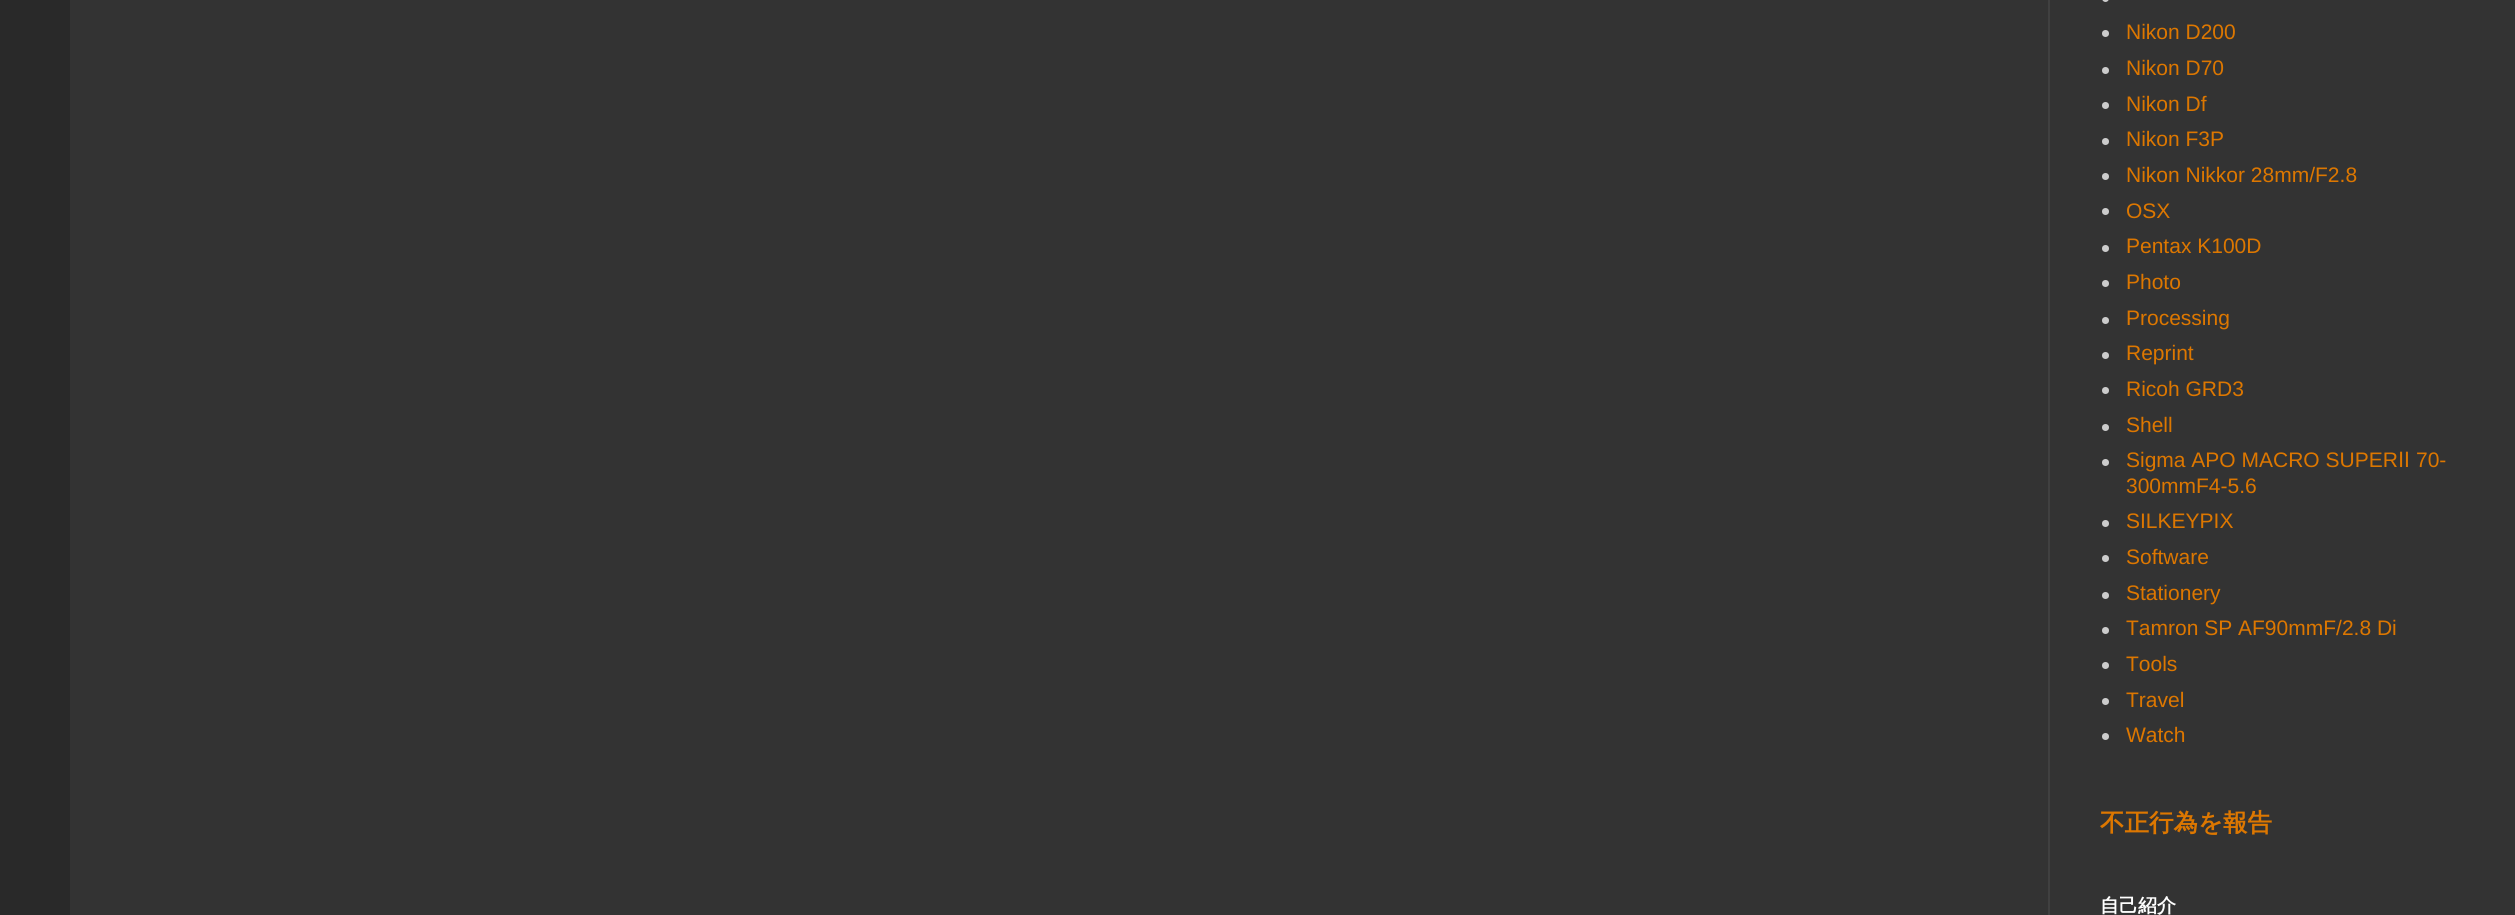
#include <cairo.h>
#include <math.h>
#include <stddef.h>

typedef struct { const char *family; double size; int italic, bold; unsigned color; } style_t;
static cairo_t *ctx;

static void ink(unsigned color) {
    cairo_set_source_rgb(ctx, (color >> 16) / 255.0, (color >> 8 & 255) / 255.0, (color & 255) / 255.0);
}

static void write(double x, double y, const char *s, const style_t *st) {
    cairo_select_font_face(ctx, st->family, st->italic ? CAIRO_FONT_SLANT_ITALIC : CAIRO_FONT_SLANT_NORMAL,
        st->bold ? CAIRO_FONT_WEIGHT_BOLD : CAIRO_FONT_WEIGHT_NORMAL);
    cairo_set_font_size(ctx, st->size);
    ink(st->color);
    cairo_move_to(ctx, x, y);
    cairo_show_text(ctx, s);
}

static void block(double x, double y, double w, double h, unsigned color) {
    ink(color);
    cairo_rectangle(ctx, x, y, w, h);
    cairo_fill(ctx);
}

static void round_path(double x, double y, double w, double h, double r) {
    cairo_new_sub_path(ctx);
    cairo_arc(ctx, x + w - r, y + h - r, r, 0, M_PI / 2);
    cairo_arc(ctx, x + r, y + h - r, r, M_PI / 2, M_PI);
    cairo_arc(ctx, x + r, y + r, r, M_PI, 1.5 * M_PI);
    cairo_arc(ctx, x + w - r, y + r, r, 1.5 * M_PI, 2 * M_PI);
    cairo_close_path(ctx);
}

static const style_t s1 = {"Liberation Sans", 21, 0, 0, 0xdd7700};
static const style_t s2 = {"FreeSans", 21, 0, 0, 0xdd7700};
static const style_t s3 = {"WenQuanYi Zen Hei", 24.5, 0, 1, 0xdd7700};
static const style_t s4 = {"WenQuanYi Zen Hei", 19, 0, 1, 0xffffff};

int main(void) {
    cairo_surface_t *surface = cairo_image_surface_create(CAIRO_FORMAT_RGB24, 2515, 915);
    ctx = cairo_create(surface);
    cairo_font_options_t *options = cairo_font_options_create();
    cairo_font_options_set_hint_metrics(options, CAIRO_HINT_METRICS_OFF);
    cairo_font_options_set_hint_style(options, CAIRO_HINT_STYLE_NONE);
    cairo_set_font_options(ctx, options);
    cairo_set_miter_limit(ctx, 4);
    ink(0x292929);
    cairo_paint(ctx);
    block(70, 0, 2445, 915, 0x333333);
    block(2048, 0, 2, 915, 0x404040);
    ink(0xcccccc);
    round_path(2102, -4, 7, 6, 3.5);
    cairo_fill(ctx);
    cairo_arc(ctx, 2105.5, 33.5, 3.5, 0, 2 * M_PI);
    cairo_fill(ctx);
    write(2126, 39, "Nikon D200", &s1);
    ink(0xcccccc);
    cairo_new_path(ctx);
    cairo_arc(ctx, 2105.5, 70.5, 3.5, 0, 2 * M_PI);
    cairo_fill(ctx);
    write(2126, 75, "Nikon D70", &s1);
    ink(0xcccccc);
    cairo_new_path(ctx);
    cairo_arc(ctx, 2105.5, 105.5, 3.5, 0, 2 * M_PI);
    cairo_fill(ctx);
    write(2126, 111, "Nikon Df", &s1);
    ink(0xcccccc);
    cairo_new_path(ctx);
    cairo_arc(ctx, 2105.5, 141.5, 3.5, 0, 2 * M_PI);
    cairo_fill(ctx);
    write(2126, 146, "Nikon F3P", &s1);
    ink(0xcccccc);
    cairo_new_path(ctx);
    cairo_arc(ctx, 2105.5, 176.5, 3.5, 0, 2 * M_PI);
    cairo_fill(ctx);
    write(2126, 182, "Nikon Nikkor 28mm/F2.8", &s1);
    ink(0xcccccc);
    cairo_new_path(ctx);
    cairo_arc(ctx, 2105.5, 211.5, 3.5, 0, 2 * M_PI);
    cairo_fill(ctx);
    write(2126, 218, "OSX", &s1);
    ink(0xcccccc);
    cairo_new_path(ctx);
    cairo_arc(ctx, 2105.5, 248.5, 3.5, 0, 2 * M_PI);
    cairo_fill(ctx);
    write(2126, 253, "Pentax K100D", &s1);
    ink(0xcccccc);
    cairo_new_path(ctx);
    cairo_arc(ctx, 2105.5, 283.5, 3.5, 0, 2 * M_PI);
    cairo_fill(ctx);
    write(2126, 289, "Photo", &s1);
    ink(0xcccccc);
    cairo_new_path(ctx);
    cairo_arc(ctx, 2105.5, 320.5, 3.5, 0, 2 * M_PI);
    cairo_fill(ctx);
    write(2126, 325, "Processing", &s1);
    ink(0xcccccc);
    cairo_new_path(ctx);
    cairo_arc(ctx, 2105.5, 355.5, 3.5, 0, 2 * M_PI);
    cairo_fill(ctx);
    write(2126, 360, "Reprint", &s1);
    ink(0xcccccc);
    cairo_new_path(ctx);
    cairo_arc(ctx, 2105.5, 390.5, 3.5, 0, 2 * M_PI);
    cairo_fill(ctx);
    write(2126, 396, "Ricoh GRD3", &s1);
    ink(0xcccccc);
    cairo_new_path(ctx);
    cairo_arc(ctx, 2105.5, 427.5, 3.5, 0, 2 * M_PI);
    cairo_fill(ctx);
    write(2126, 432, "Shell", &s1);
    ink(0xcccccc);
    cairo_new_path(ctx);
    cairo_arc(ctx, 2105.5, 462.5, 3.5, 0, 2 * M_PI);
    cairo_fill(ctx);
    write(2126, 467, "Sigma APO MACRO SUPER", &s1);
    write(2398, 467, "Ⅱ", &s2);
    write(2416, 467, "70-", &s1);
    write(2126, 493, "300mmF4-5.6", &s1);
    ink(0xcccccc);
    cairo_new_path(ctx);
    cairo_arc(ctx, 2105.5, 523.5, 3.5, 0, 2 * M_PI);
    cairo_fill(ctx);
    write(2126, 528, "SILKEYPIX", &s1);
    ink(0xcccccc);
    cairo_new_path(ctx);
    cairo_arc(ctx, 2105.5, 558.5, 3.5, 0, 2 * M_PI);
    cairo_fill(ctx);
    write(2126, 564, "Software", &s1);
    ink(0xcccccc);
    cairo_new_path(ctx);
    cairo_arc(ctx, 2105.5, 595.5, 3.5, 0, 2 * M_PI);
    cairo_fill(ctx);
    write(2126, 600, "Stationery", &s1);
    ink(0xcccccc);
    cairo_new_path(ctx);
    cairo_arc(ctx, 2105.5, 630.5, 3.5, 0, 2 * M_PI);
    cairo_fill(ctx);
    write(2126, 635, "Tamron SP AF90mmF/2.8 Di", &s1);
    ink(0xcccccc);
    cairo_new_path(ctx);
    cairo_arc(ctx, 2105.5, 665.5, 3.5, 0, 2 * M_PI);
    cairo_fill(ctx);
    write(2126, 671, "Tools", &s1);
    ink(0xcccccc);
    cairo_new_path(ctx);
    cairo_arc(ctx, 2105.5, 701.5, 3.5, 0, 2 * M_PI);
    cairo_fill(ctx);
    write(2126, 707, "Travel", &s1);
    ink(0xcccccc);
    cairo_new_path(ctx);
    cairo_arc(ctx, 2105.5, 736.5, 3.5, 0, 2 * M_PI);
    cairo_fill(ctx);
    write(2126, 742, "Watch", &s1);
    write(2100, 831, "不正行為を報告", &s3);
    write(2100, 912, "自己紹介", &s4);
    cairo_surface_write_to_png(surface, "screenshot.png");
    cairo_font_options_destroy(options);
    cairo_destroy(ctx);
    cairo_surface_destroy(surface);
    return 0;
}
